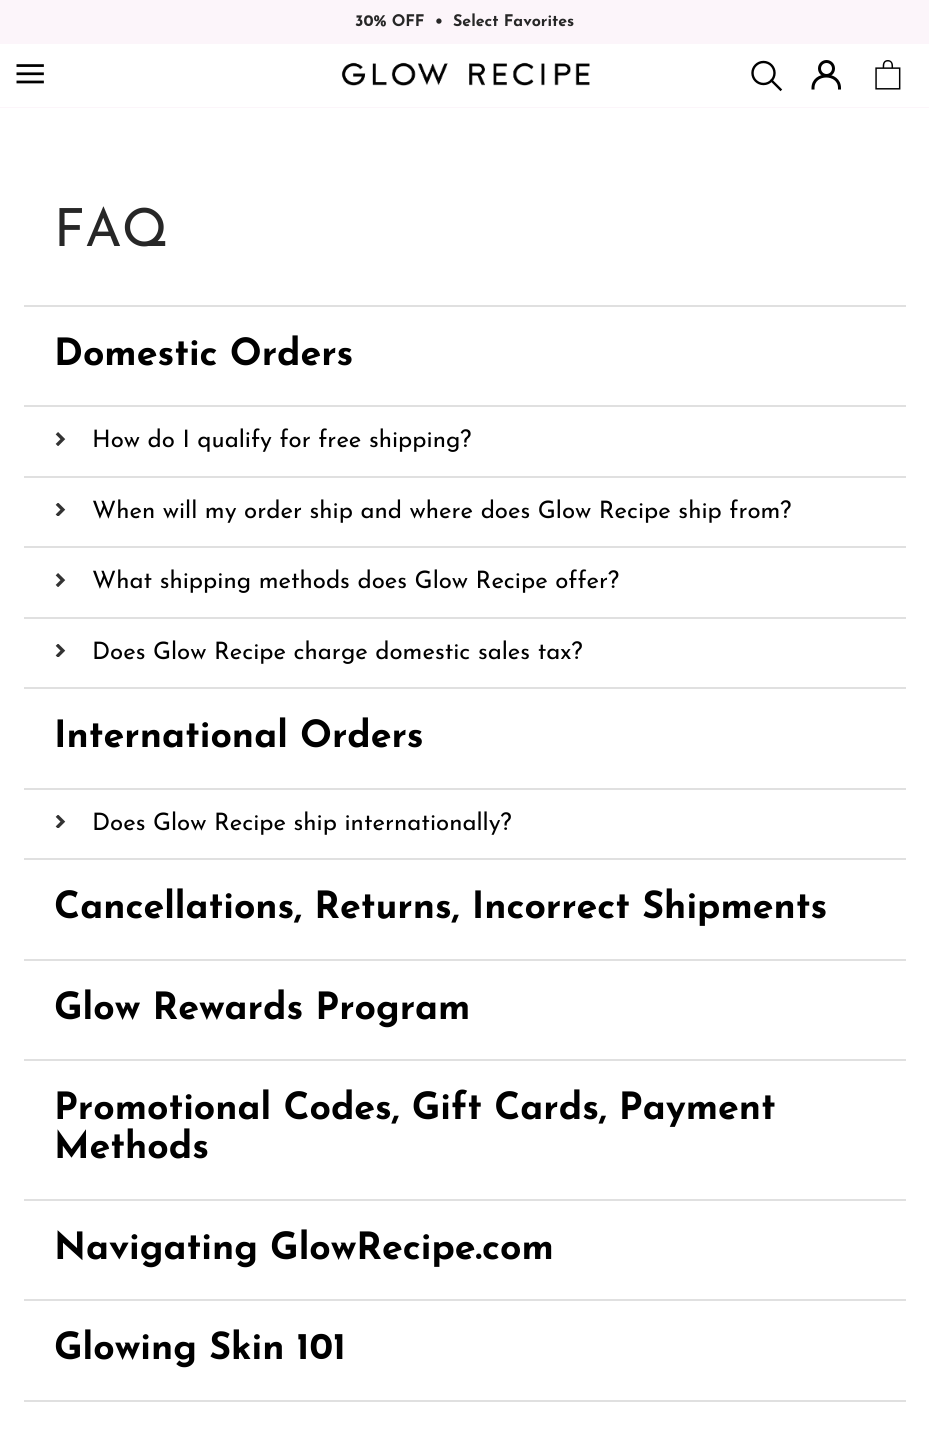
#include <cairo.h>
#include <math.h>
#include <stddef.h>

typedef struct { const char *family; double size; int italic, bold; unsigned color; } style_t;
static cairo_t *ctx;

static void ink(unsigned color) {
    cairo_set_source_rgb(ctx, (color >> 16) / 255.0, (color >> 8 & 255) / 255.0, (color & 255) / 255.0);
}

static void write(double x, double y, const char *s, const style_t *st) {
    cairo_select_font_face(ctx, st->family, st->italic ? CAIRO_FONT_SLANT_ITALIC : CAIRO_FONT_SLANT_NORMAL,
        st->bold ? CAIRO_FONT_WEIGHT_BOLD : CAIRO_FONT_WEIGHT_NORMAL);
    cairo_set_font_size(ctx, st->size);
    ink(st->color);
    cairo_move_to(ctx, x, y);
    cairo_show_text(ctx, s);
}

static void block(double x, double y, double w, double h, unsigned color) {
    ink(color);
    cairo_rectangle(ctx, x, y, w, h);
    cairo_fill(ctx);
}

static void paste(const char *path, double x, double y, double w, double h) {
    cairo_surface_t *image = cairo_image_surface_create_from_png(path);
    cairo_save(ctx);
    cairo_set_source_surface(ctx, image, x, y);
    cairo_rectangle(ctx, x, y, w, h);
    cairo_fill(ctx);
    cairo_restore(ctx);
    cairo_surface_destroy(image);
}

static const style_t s1 = {"Josefin Sans", 16, 0, 1, 0x272727};
static const style_t s2 = {"Josefin Sans", 52.5, 0, 0, 0x272727};
static const style_t s3 = {"Josefin Sans", 37.5, 0, 1, 0x000000};
static const style_t s4 = {"Josefin Sans", 24, 0, 0, 0x000000};

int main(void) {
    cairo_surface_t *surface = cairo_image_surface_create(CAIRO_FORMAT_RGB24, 929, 1430);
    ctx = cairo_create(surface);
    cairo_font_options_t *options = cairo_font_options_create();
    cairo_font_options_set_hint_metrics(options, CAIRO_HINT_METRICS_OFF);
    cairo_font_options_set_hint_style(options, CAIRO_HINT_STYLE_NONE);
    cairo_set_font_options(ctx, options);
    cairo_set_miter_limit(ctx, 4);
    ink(0xfcf5fa);
    cairo_paint(ctx);
    write(355, 26, "30% OFF", &s1);
    write(435, 26, "•", &s1);
    write(453, 26, "Select Favorites", &s1);
    block(0, 44, 929, 63, 0xffffff);
    paste("pic1.png", 16, 64, 28, 20);
    paste("pic2.png", 341, 62, 249, 24);
    cairo_new_path(ctx);
    cairo_move_to(ctx, 780.5, 89.5);
    cairo_line_to(ctx, 771.5, 80.5);
    ink(0x000000);
    cairo_set_line_width(ctx, 2.4);
    cairo_set_line_cap(ctx, CAIRO_LINE_CAP_SQUARE);
    cairo_stroke(ctx);
    cairo_arc(ctx, 763.5, 73, 11, 0, 2 * M_PI);
    cairo_set_line_cap(ctx, CAIRO_LINE_CAP_BUTT);
    cairo_stroke(ctx);
    cairo_new_path(ctx);
    cairo_move_to(ctx, 813, 88);
    cairo_curve_to(ctx, 813, 72, 839.5, 72, 839.5, 88);
    cairo_set_line_width(ctx, 3);
    cairo_set_line_cap(ctx, CAIRO_LINE_CAP_SQUARE);
    cairo_stroke(ctx);
    cairo_arc(ctx, 826.5, 68.5, 7, 0, 2 * M_PI);
    cairo_set_line_cap(ctx, CAIRO_LINE_CAP_BUTT);
    cairo_stroke(ctx);
    paste("pic3.png", 875, 60, 26, 30);
    block(0, 108, 929, 1322, 0xffffff);
    block(24, 305, 882, 2, 0xe0e0e0);
    write(54, 246, "FAQ", &s2);
    block(24, 405, 882, 2, 0xe0e0e0);
    write(54, 365, "Domestic Orders", &s3);
    block(24, 476, 882, 2, 0xe0e0e0);
    paste("pic4.png", 55, 432, 11, 14);
    write(92, 447, "How do I qualify for free shipping?", &s4);
    block(24, 546, 882, 2, 0xe0e0e0);
    paste("pic5.png", 55, 503, 11, 13);
    write(92, 518, "When will my order ship and where does Glow Recipe ship from?", &s4);
    block(24, 617, 882, 2, 0xe0e0e0);
    paste("pic4.png", 55, 573, 11, 14);
    write(92, 588, "What shipping methods does Glow Recipe offer?", &s4);
    block(24, 687, 882, 2, 0xe0e0e0);
    paste("pic5.png", 55, 644, 11, 13);
    write(92, 659, "Does Glow Recipe charge domestic sales tax?", &s4);
    block(24, 788, 882, 2, 0xe0e0e0);
    write(54, 747, "International Orders", &s3);
    block(24, 858, 882, 2, 0xe0e0e0);
    paste("pic5.png", 55, 815, 11, 13);
    write(92, 830, "Does Glow Recipe ship internationally?", &s4);
    block(24, 959, 882, 2, 0xe0e0e0);
    write(54, 918, "Cancellations, Returns, Incorrect Shipments", &s3);
    block(24, 1059, 882, 2, 0xe0e0e0);
    write(54, 1019, "Glow Rewards Program", &s3);
    block(24, 1199, 882, 2, 0xe0e0e0);
    write(54, 1119, "Promotional Codes, Gift Cards, Payment", &s3);
    write(54, 1158, "Methods", &s3);
    block(24, 1299, 882, 2, 0xe0e0e0);
    write(54, 1259, "Navigating GlowRecipe.com", &s3);
    block(24, 1400, 882, 2, 0xe0e0e0);
    write(54, 1359, "Glowing Skin 101", &s3);
    cairo_surface_write_to_png(surface, "screenshot.png");
    cairo_font_options_destroy(options);
    cairo_destroy(ctx);
    cairo_surface_destroy(surface);
    return 0;
}
